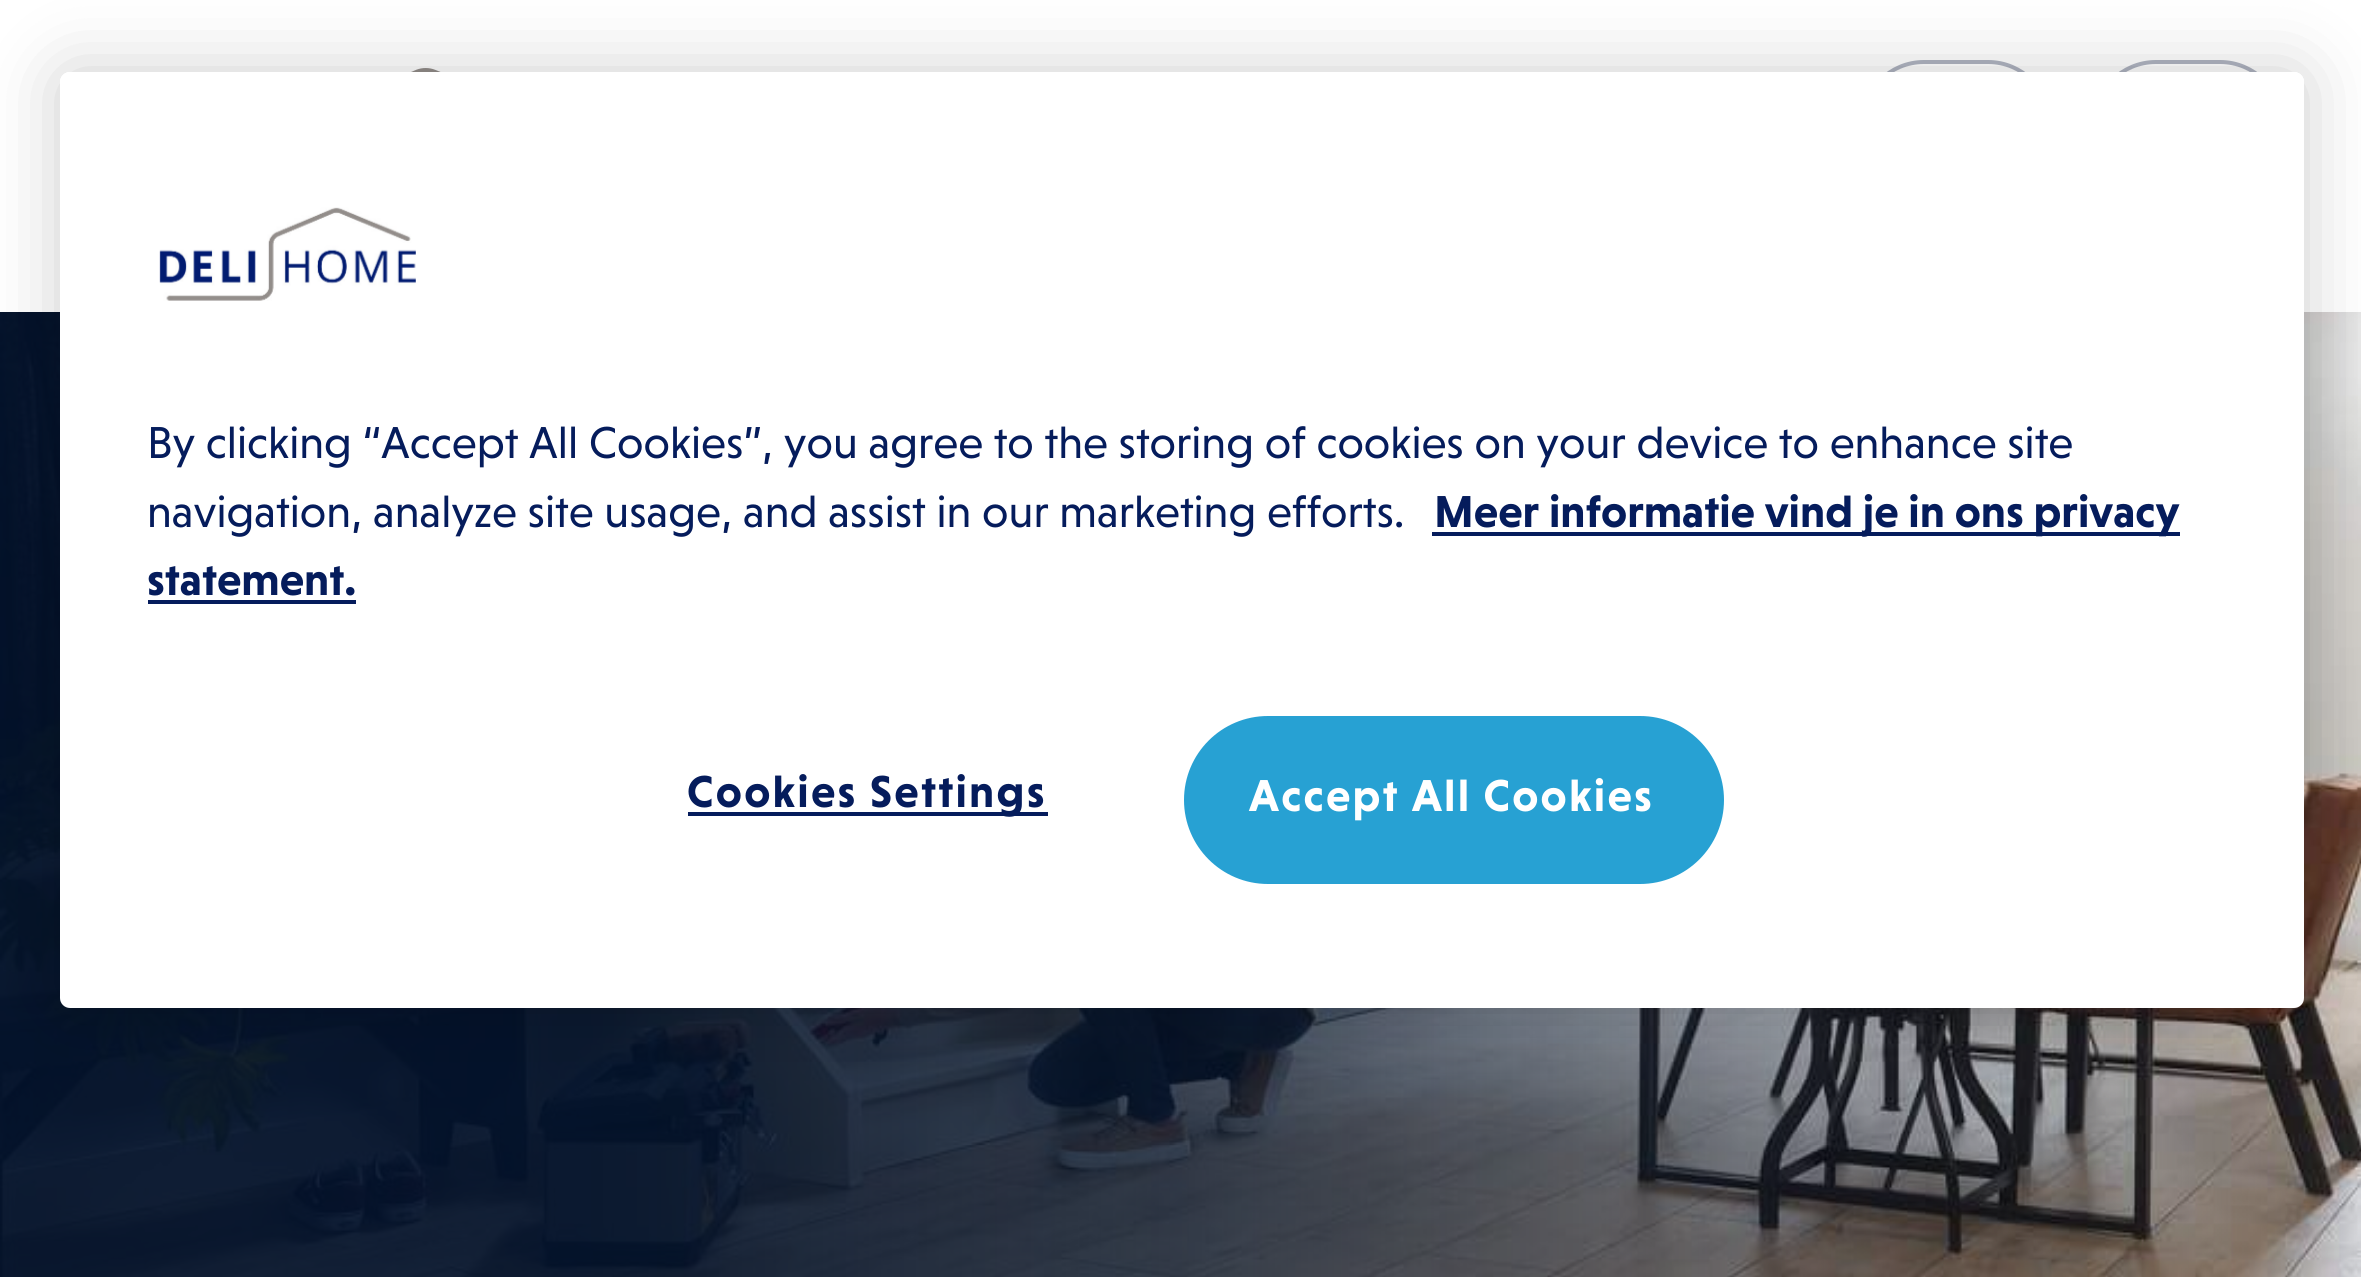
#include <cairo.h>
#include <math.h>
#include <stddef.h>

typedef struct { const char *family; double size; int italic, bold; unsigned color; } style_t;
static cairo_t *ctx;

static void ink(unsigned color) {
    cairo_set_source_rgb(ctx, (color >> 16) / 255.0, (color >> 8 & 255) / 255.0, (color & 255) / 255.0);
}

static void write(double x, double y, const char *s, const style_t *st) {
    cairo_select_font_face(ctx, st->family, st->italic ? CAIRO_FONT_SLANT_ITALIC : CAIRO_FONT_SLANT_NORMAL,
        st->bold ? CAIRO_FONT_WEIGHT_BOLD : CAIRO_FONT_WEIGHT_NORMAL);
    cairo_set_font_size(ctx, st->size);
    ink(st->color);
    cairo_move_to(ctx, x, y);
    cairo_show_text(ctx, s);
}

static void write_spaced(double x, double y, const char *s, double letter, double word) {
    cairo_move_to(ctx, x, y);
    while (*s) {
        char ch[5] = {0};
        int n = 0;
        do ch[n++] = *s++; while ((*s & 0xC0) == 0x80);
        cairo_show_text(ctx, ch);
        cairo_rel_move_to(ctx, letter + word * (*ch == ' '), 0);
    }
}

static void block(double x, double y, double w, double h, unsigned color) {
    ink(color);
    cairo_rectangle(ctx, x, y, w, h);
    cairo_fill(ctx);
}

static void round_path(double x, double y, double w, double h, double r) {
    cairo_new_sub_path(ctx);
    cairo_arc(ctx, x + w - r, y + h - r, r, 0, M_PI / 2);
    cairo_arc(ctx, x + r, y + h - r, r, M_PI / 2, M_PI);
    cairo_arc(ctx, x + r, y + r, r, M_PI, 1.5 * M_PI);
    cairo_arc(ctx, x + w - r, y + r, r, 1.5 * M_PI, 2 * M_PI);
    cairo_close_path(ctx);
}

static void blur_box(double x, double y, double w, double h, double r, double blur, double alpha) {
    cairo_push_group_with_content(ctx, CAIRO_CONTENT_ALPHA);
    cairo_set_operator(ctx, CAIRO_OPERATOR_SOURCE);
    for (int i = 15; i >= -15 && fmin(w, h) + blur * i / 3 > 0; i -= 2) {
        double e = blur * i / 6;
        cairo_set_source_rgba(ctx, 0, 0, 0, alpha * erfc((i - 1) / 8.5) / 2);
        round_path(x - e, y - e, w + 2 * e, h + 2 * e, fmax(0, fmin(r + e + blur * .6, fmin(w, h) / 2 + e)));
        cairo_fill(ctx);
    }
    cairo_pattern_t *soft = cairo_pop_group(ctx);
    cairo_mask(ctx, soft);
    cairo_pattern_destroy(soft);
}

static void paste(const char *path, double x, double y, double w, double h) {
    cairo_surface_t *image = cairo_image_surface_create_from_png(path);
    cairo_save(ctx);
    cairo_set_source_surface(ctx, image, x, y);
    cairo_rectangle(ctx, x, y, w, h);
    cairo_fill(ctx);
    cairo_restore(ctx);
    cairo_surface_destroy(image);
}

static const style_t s1 = {"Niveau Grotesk", 45.55, 0, 0, 0x051c5c};
static const style_t s2 = {"Niveau Grotesk", 45.55, 0, 1, 0x051c5c};

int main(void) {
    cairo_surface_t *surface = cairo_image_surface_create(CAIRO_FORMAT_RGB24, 2361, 1277);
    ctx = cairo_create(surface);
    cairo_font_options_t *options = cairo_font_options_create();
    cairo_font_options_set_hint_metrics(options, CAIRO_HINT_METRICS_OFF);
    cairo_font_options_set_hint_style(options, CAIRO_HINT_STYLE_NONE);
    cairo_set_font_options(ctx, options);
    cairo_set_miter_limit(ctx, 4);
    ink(0xffffff);
    cairo_paint(ctx);
    paste("pic1.png", 411, 68, 30, 4);
    round_path(1862, 62, 188, 188, 62);
    ink(0xafb4c1);
    cairo_set_line_width(ctx, 4);
    cairo_stroke(ctx);
    round_path(2094, 62, 188, 188, 62);
    cairo_stroke(ctx);
    paste("pic2.png", 0, 312, 2361, 965);
    cairo_save(ctx);
    cairo_set_fill_rule(ctx, CAIRO_FILL_RULE_EVEN_ODD);
    cairo_new_path(ctx);
    cairo_move_to(ctx, 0, 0);
    cairo_line_to(ctx, 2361, 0);
    cairo_line_to(ctx, 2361, 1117);
    cairo_line_to(ctx, 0, 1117);
    cairo_close_path(ctx);
    cairo_move_to(ctx, 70, 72);
    cairo_line_to(ctx, 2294, 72);
    cairo_curve_to(ctx, 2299.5, 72, 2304, 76.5, 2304, 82);
    cairo_line_to(ctx, 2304, 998);
    cairo_curve_to(ctx, 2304, 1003.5, 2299.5, 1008, 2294, 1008);
    cairo_line_to(ctx, 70, 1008);
    cairo_curve_to(ctx, 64.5, 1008, 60, 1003.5, 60, 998);
    cairo_line_to(ctx, 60, 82);
    cairo_curve_to(ctx, 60, 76.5, 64.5, 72, 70, 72);
    cairo_close_path(ctx);
    cairo_clip(ctx);
    ink(0x000000);
    blur_box(60, 72, 2244, 936, 10, 36, 0.2);
    cairo_restore(ctx);
    ink(0xffffff);
    round_path(60, 72, 2244, 936, 10);
    cairo_fill(ctx);
    paste("pic3.png", 159, 207, 257, 94);
    write(147, 458, "By clicking “Accept All Cookies”, you agree to the storing of cookies on your device to enhance site", &s1);
    write(147, 527, "navigation, analyze site usage, and assist in our marketing efforts.", &s1);
    block(1432, 532, 748, 4, 0x051c5c);
    write(1434, 527, "Meer informatie vind je in ons privacy", &s2);
    write(147, 595, "statement.", &s2);
    block(148, 600, 208, 4, 0x051c5c);
    block(688, 812, 360, 4, 0x051c5c);
    write_spaced(687, 807, "Cookies Settings", 2.25, 0);
    ink(0x27a1d3);
    round_path(1186, 718, 536, 164, 82);
    cairo_fill_preserve(ctx);
    cairo_stroke(ctx);
    ink(0xffffff);
    write_spaced(1249, 811, "Accept All Cookies", 2.25, 0);
    cairo_surface_write_to_png(surface, "screenshot.png");
    cairo_font_options_destroy(options);
    cairo_destroy(ctx);
    cairo_surface_destroy(surface);
    return 0;
}
